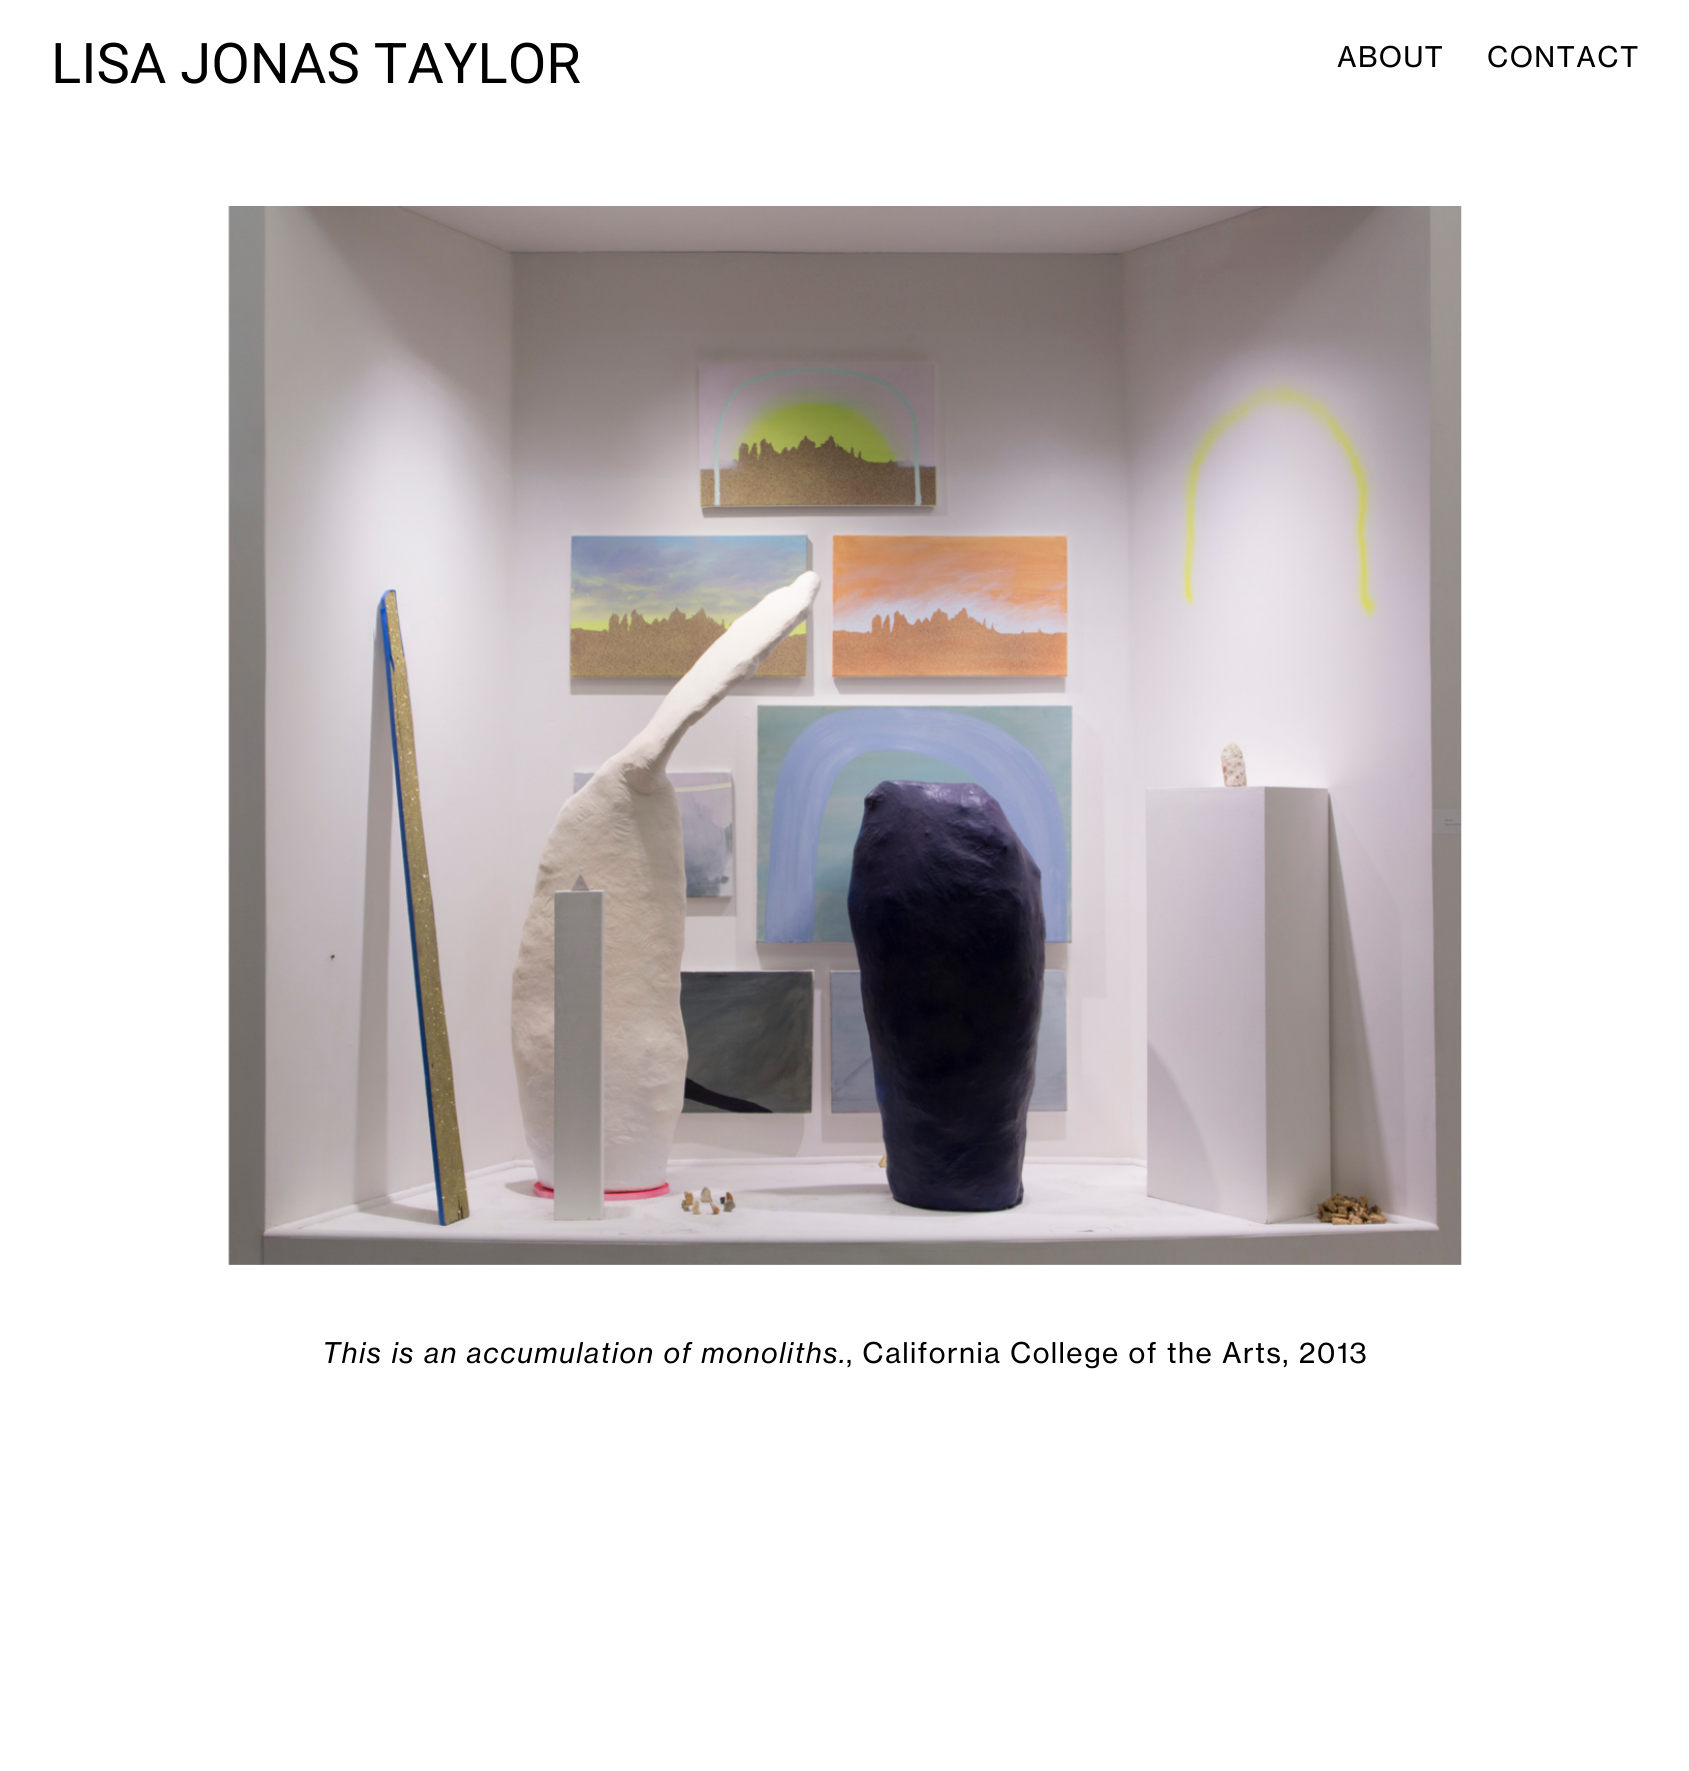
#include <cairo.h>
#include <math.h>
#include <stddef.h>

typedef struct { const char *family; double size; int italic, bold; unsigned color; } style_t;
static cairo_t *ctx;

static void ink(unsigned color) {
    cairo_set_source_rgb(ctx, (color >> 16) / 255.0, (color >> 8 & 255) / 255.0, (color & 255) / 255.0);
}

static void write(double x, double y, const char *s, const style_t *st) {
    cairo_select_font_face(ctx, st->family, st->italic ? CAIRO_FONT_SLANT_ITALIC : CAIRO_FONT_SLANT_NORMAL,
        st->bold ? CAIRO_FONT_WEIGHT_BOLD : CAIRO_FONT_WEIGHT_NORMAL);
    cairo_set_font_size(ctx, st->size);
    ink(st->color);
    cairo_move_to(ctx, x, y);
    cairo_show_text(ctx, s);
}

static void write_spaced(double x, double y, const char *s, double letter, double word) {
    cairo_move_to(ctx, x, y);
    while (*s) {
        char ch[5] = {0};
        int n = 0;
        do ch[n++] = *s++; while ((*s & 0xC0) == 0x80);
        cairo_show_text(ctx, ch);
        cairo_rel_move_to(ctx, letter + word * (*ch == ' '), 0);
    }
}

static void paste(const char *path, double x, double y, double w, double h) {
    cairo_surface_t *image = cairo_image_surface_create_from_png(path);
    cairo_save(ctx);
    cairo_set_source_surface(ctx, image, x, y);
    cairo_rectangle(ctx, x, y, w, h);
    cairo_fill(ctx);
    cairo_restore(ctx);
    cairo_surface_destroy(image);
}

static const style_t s1 = {"Roboto", 56.1, 0, 0, 0x000000};

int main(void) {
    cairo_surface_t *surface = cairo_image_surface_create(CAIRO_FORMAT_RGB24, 1689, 1771);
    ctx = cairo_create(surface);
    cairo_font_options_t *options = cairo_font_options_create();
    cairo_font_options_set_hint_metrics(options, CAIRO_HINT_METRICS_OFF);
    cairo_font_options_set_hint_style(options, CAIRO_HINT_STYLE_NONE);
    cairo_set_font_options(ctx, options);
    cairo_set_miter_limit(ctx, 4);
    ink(0xffffff);
    cairo_paint(ctx);
    write(51, 83, "LISA JONAS TAYLOR", &s1);
    cairo_select_font_face(ctx, "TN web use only", CAIRO_FONT_SLANT_NORMAL, CAIRO_FONT_WEIGHT_NORMAL);
    cairo_set_font_size(ctx, 28.1);
    write_spaced(1337, 67, "ABOUT", 1.4, 0);
    write_spaced(1487, 67, "CONTACT", 1.4, 0);
    paste("pic1.png", 228, 206, 1234, 1059);
    cairo_select_font_face(ctx, "TN web use only", CAIRO_FONT_SLANT_ITALIC, CAIRO_FONT_WEIGHT_NORMAL);
    write_spaced(322, 1363, "This is an accumulation of monoliths.", 1.4, 0);
    cairo_select_font_face(ctx, "TN web use only", CAIRO_FONT_SLANT_NORMAL, CAIRO_FONT_WEIGHT_NORMAL);
    write_spaced(846, 1363, ", California College of the Arts, 2013", 1.4, 0);
    cairo_surface_write_to_png(surface, "screenshot.png");
    cairo_font_options_destroy(options);
    cairo_destroy(ctx);
    cairo_surface_destroy(surface);
    return 0;
}
